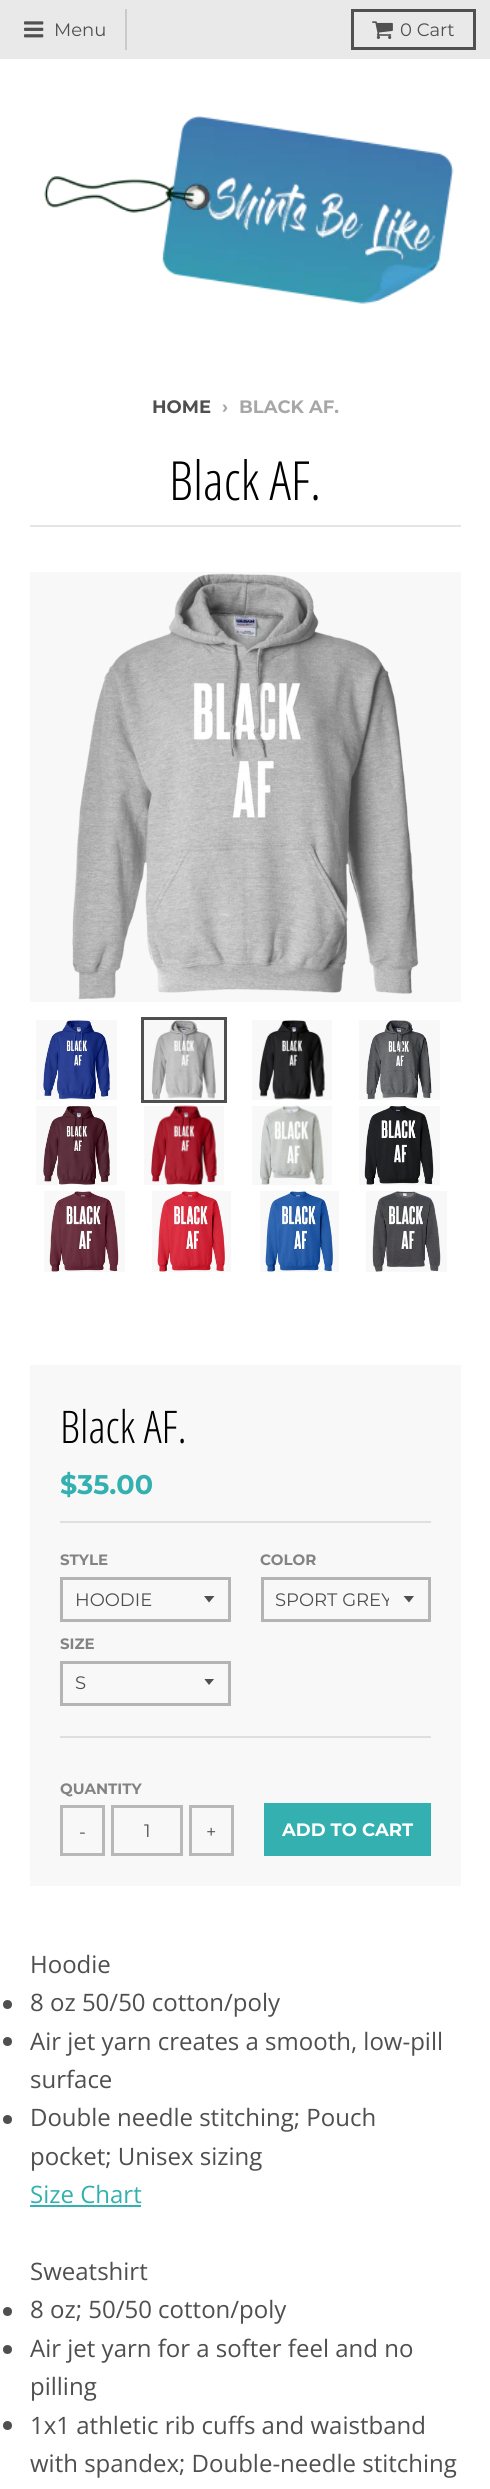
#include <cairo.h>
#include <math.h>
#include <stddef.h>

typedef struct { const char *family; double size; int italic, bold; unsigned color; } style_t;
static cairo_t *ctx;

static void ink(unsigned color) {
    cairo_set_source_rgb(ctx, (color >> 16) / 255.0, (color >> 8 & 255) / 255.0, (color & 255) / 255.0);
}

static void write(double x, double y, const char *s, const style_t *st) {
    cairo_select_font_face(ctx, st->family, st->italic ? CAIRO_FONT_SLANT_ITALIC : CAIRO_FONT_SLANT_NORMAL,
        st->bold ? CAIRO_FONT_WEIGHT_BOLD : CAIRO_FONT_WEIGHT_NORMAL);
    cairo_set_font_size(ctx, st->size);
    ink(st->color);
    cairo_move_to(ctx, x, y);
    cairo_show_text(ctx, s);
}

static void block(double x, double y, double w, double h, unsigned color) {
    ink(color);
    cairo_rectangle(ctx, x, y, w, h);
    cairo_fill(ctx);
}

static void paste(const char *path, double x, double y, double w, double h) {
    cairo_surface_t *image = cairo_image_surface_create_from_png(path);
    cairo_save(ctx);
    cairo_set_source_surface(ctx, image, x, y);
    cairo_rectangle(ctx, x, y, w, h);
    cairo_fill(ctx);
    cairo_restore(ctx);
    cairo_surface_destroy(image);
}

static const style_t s1 = {"Montserrat", 18, 0, 0, 0x4f4f4f};
static const style_t s2 = {"Montserrat", 18, 0, 1, 0x4f4f4f};
static const style_t s3 = {"Montserrat", 18, 0, 1, 0xa7a7a7};
static const style_t s4 = {"Open Sans Condensed Light", 54, 0, 0, 0x000000};
static const style_t s5 = {"Open Sans Condensed Light", 45, 0, 0, 0x000000};
static const style_t s6 = {"Montserrat", 27, 0, 1, 0x34b0b0};
static const style_t s7 = {"Montserrat", 15, 0, 1, 0x838383};
static const style_t s8 = {"Montserrat", 18, 0, 1, 0xffffff};
static const style_t s9 = {"Open Sans", 24, 0, 0, 0x4f4f4f};
static const style_t s10 = {"Open Sans", 24, 0, 0, 0x34b0b0};

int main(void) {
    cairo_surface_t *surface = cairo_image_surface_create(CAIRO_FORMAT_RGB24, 490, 2489);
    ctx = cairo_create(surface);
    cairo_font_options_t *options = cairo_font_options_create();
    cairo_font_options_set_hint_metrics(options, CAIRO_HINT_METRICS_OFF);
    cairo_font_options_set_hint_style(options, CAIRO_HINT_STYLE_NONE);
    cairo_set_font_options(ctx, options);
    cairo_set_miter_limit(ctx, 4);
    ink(0xffffff);
    cairo_paint(ctx);
    block(0, 0, 490, 59, 0xe9e9e9);
    block(125, 9, 2, 41, 0xcacaca);
    paste("pic1.png", 24, 21, 20, 17);
    write(54, 36, "Menu", &s1);
    cairo_rectangle(ctx, 352.5, 10.5, 122, 38);
    ink(0x505050);
    cairo_set_line_width(ctx, 3);
    cairo_stroke(ctx);
    paste("pic2.png", 372, 21, 21, 18);
    write(400, 36, "0 Cart", &s1);
    paste("pic3.png", 44, 116, 410, 188);
    write(152, 413, "HOME", &s2);
    write(222, 413, "›", &s3);
    write(239, 413, "BLACK AF.", &s3);
    block(30, 525, 431, 2, 0xe5e5e5);
    write(169, 500, "Black AF.", &s4);
    block(30, 572, 431, 430, 0xf8f8f8);
    paste("pic4.png", 72, 573, 347, 427);
    block(36, 1020, 81, 80, 0xf8f8f8);
    paste("pic5.png", 43, 1020, 67, 80);
    cairo_rectangle(ctx, 142.5, 1018.5, 83, 83);
    cairo_fill_preserve(ctx);
    ink(0x4f4f4f);
    cairo_stroke(ctx);
    paste("pic6.png", 151, 1020, 65, 80);
    block(252, 1020, 80, 80, 0xf8f8f8);
    paste("pic7.png", 259, 1020, 66, 80);
    block(359, 1020, 81, 80, 0xf8f8f8);
    paste("pic8.png", 366, 1020, 66, 79);
    block(36, 1106, 81, 79, 0xf8f8f8);
    paste("pic9.png", 43, 1105, 67, 80);
    block(144, 1106, 80, 79, 0xf8f8f8);
    paste("pic10.png", 151, 1105, 66, 80);
    block(252, 1106, 80, 79, 0xf8f8f8);
    paste("pic11.png", 260, 1105, 64, 80);
    block(359, 1106, 81, 79, 0xf8f8f8);
    paste("pic12.png", 364, 1106, 70, 79);
    block(44, 1191, 81, 81, 0xf8f8f8);
    paste("pic13.png", 49, 1191, 70, 81);
    block(152, 1191, 79, 81, 0xf8f8f8);
    paste("pic14.png", 157, 1191, 68, 81);
    block(260, 1191, 79, 81, 0xf8f8f8);
    paste("pic15.png", 265, 1191, 68, 81);
    block(366, 1191, 81, 81, 0xf8f8f8);
    paste("pic16.png", 372, 1191, 69, 81);
    block(30, 1365, 431, 521, 0xf8f8f8);
    write(60, 1443, "Black AF.", &s5);
    block(60, 1521, 371, 2, 0xdfdfdf);
    write(60, 1494, "$35.00", &s6);
    block(60, 1736, 371, 2, 0xdfdfdf);
    write(60, 1565, "STYLE", &s7);
    ink(0x4f4f4f);
    cairo_new_path(ctx);
    cairo_move_to(ctx, 204, 1596);
    cairo_line_to(ctx, 209, 1602.5);
    cairo_line_to(ctx, 214.5, 1596);
    cairo_close_path(ctx);
    cairo_fill(ctx);
    cairo_rectangle(ctx, 61.5, 1578.5, 168, 42);
    ink(0xb4b4b4);
    cairo_stroke(ctx);
    write(75, 1606, "HOODIE", &s1);
    write(260, 1565, "COLOR", &s7);
    ink(0x4f4f4f);
    cairo_new_path(ctx);
    cairo_move_to(ctx, 403.5, 1596);
    cairo_line_to(ctx, 409, 1602.5);
    cairo_line_to(ctx, 414, 1596);
    cairo_close_path(ctx);
    cairo_fill(ctx);
    cairo_rectangle(ctx, 262.5, 1578.5, 167, 42);
    ink(0xb4b4b4);
    cairo_stroke(ctx);
    cairo_save(ctx);
    cairo_rectangle(ctx, 276, 1584, 113, 30);
    cairo_clip(ctx);
    write(275, 1606, "SPORT GREY", &s1);
    cairo_restore(ctx);
    write(60, 1649, "SIZE", &s7);
    cairo_save(ctx);
    cairo_rectangle(ctx, 204, 1679, 12, 7);
    cairo_clip(ctx);
    ink(0x4f4f4f);
    cairo_new_path(ctx);
    cairo_move_to(ctx, 204, 1678.5);
    cairo_line_to(ctx, 209, 1685);
    cairo_line_to(ctx, 214.5, 1678.5);
    cairo_close_path(ctx);
    cairo_fill(ctx);
    cairo_restore(ctx);
    cairo_rectangle(ctx, 61.5, 1662.5, 168, 42);
    ink(0xb4b4b4);
    cairo_stroke(ctx);
    write(75, 1689, "S", &s1);
    write(60, 1794, "QUANTITY", &s7);
    cairo_rectangle(ctx, 61.5, 1806.5, 42, 48);
    ink(0xb8b8b8);
    cairo_stroke(ctx);
    write(79, 1838, "-", &s1);
    cairo_rectangle(ctx, 112.5, 1806.5, 69, 48);
    ink(0xb8b8b8);
    cairo_stroke(ctx);
    write(144, 1837, "1", &s1);
    cairo_rectangle(ctx, 190.5, 1806.5, 42, 48);
    ink(0xb8b8b8);
    cairo_stroke(ctx);
    write(206, 1838, "+", &s1);
    block(264, 1803, 167, 53, 0x34b0b0);
    write(282, 1836, "ADD TO CART", &s8);
    write(30, 1973, "Hoodie", &s9);
    cairo_new_path(ctx);
    cairo_arc(ctx, 7.5, 2004.5, 4.5, 0, 2 * M_PI);
    cairo_fill(ctx);
    write(30, 2011, "8 oz 50/50 cotton/poly", &s9);
    cairo_new_path(ctx);
    cairo_arc(ctx, 7.5, 2041.5, 4.5, 0, 2 * M_PI);
    cairo_fill(ctx);
    write(30, 2050, "Air jet yarn creates a smooth, low-pill", &s9);
    write(30, 2088, "surface", &s9);
    cairo_new_path(ctx);
    cairo_arc(ctx, 7.5, 2119.5, 4.5, 0, 2 * M_PI);
    cairo_fill(ctx);
    write(30, 2126, "Double needle stitching; Pouch", &s9);
    write(30, 2165, "pocket; Unisex sizing", &s9);
    write(30, 2203, "Size Chart", &s10);
    block(30, 2205, 111, 2, 0x34b0b0);
    write(30, 2280, "Sweatshirt", &s9);
    cairo_new_path(ctx);
    cairo_arc(ctx, 7.5, 2311.5, 4.5, 0, 2 * M_PI);
    cairo_fill(ctx);
    write(30, 2318, "8 oz; 50/50 cotton/poly", &s9);
    cairo_new_path(ctx);
    cairo_arc(ctx, 7.5, 2349.5, 4.5, 0, 2 * M_PI);
    cairo_fill(ctx);
    write(30, 2357, "Air jet yarn for a softer feel and no", &s9);
    write(30, 2395, "pilling", &s9);
    cairo_new_path(ctx);
    cairo_arc(ctx, 7.5, 2425.5, 4.5, 0, 2 * M_PI);
    cairo_fill(ctx);
    write(30, 2434, "1x1 athletic rib cuffs and waistband", &s9);
    write(30, 2472, "with spandex; Double-needle stitching", &s9);
    cairo_surface_write_to_png(surface, "screenshot.png");
    cairo_font_options_destroy(options);
    cairo_destroy(ctx);
    cairo_surface_destroy(surface);
    return 0;
}
